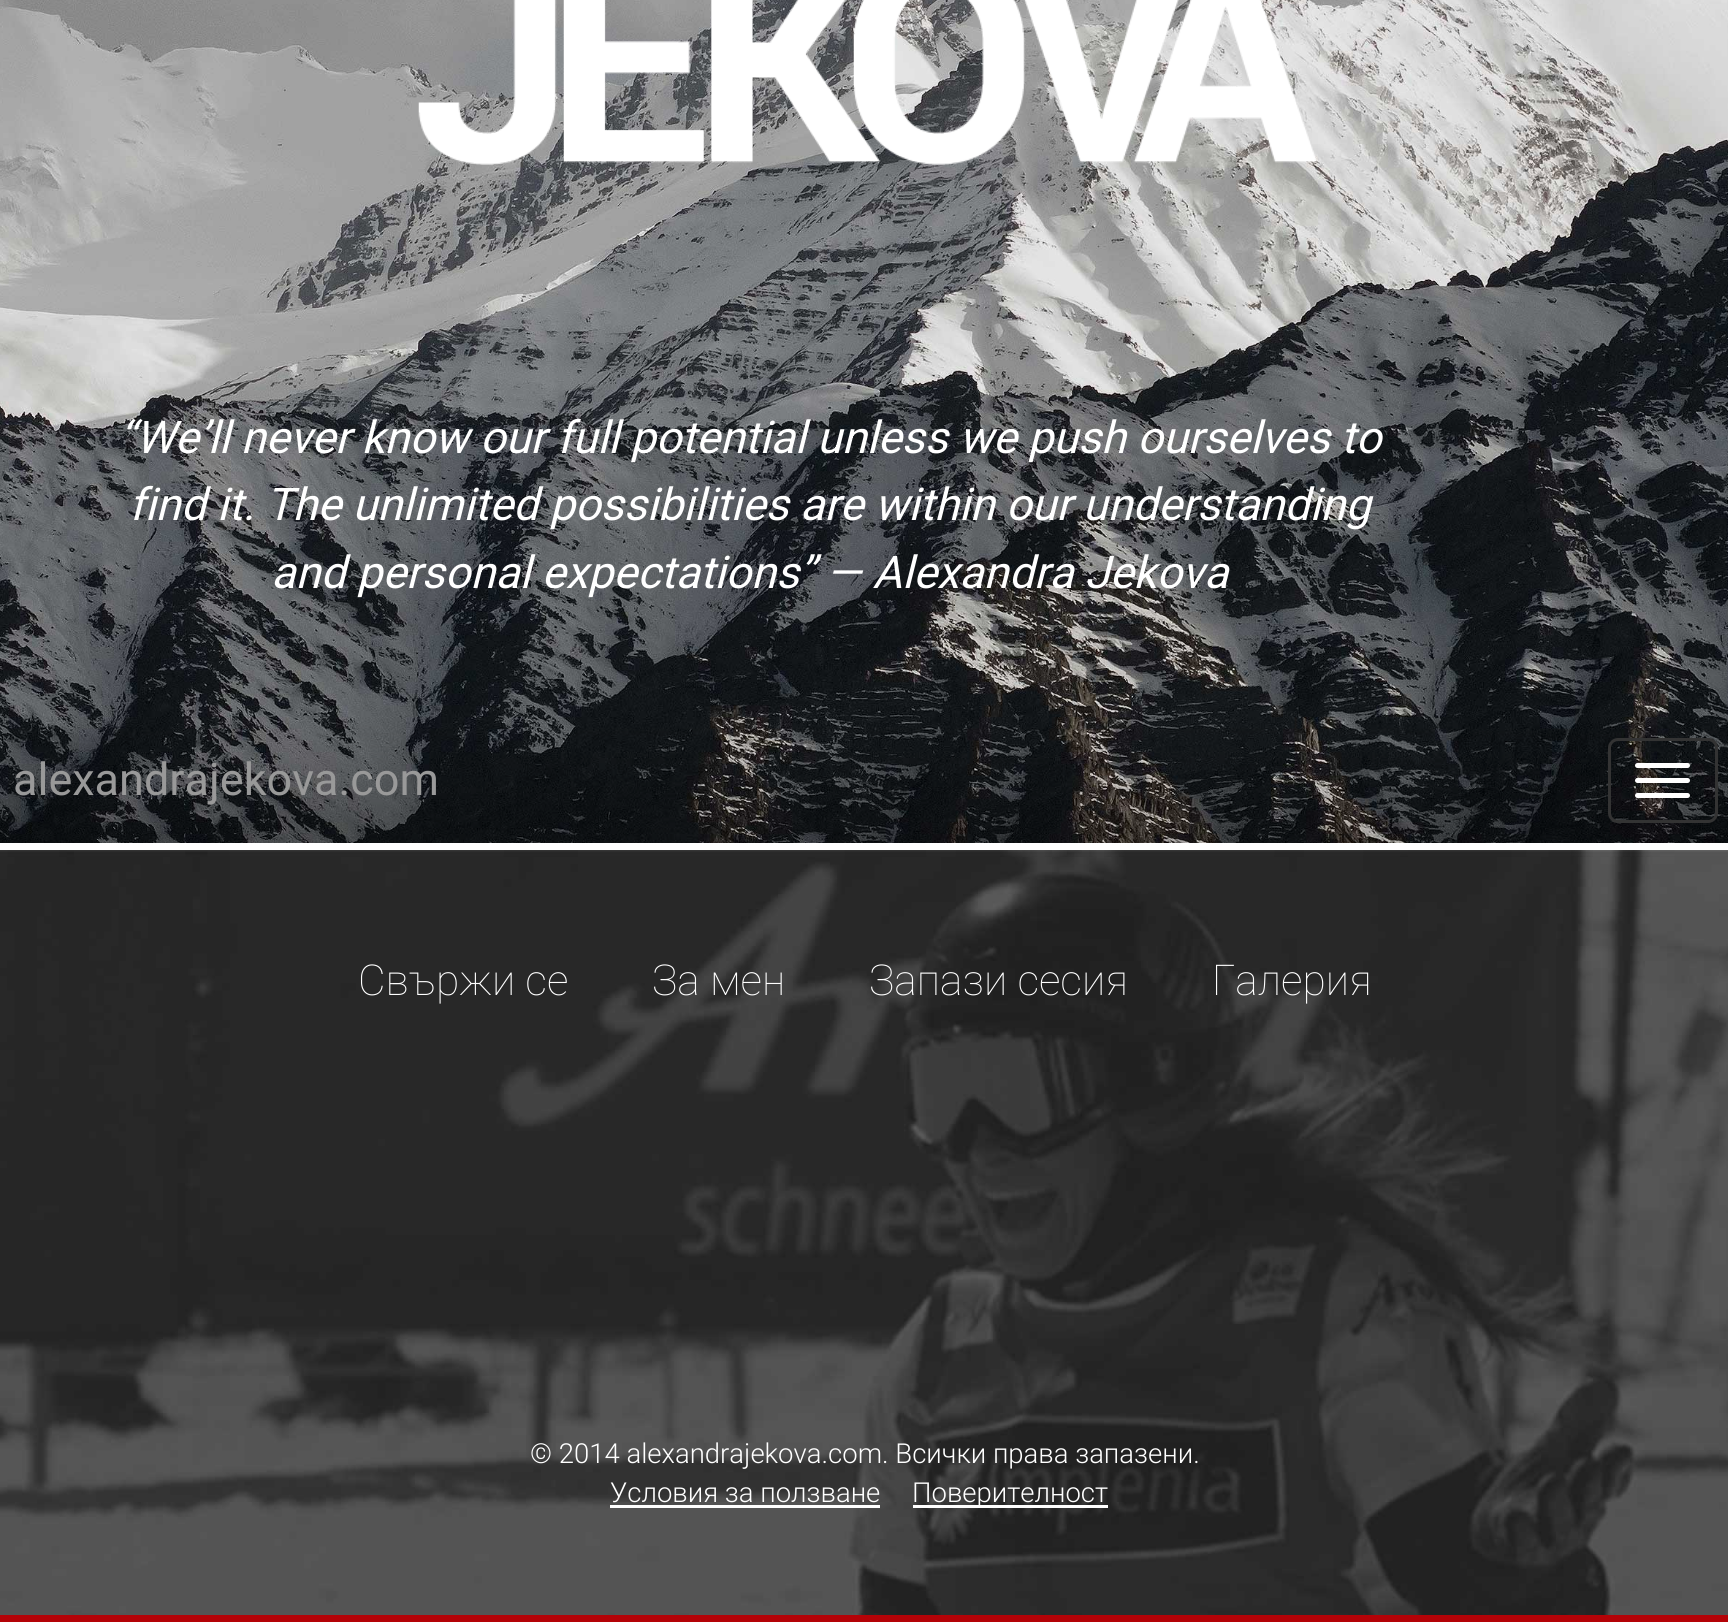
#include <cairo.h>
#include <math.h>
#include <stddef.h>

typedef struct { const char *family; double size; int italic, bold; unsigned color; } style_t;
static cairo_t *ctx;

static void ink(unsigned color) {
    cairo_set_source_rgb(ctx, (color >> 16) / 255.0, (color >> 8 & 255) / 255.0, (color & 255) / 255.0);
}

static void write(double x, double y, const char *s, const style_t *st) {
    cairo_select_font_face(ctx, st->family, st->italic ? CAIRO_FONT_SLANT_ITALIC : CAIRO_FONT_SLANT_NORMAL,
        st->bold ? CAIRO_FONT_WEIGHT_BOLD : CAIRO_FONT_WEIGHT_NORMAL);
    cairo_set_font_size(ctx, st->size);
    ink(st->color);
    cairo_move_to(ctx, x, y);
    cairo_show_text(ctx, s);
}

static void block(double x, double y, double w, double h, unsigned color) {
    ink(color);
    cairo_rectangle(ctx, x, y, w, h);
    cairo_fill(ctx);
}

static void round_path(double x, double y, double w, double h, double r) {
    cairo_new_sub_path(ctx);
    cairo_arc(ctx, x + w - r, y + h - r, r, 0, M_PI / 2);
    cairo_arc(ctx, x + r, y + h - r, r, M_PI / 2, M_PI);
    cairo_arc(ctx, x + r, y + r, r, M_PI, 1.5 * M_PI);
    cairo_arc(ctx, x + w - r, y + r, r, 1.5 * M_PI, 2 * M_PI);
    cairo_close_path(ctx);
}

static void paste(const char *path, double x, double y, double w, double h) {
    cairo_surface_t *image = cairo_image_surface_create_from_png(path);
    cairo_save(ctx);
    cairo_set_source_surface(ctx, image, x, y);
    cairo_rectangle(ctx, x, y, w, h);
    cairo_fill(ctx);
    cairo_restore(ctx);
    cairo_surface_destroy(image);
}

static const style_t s1 = {"Roboto", 45, 1, 0, 0xffffff};
static const style_t s2 = {"Roboto", 45, 0, 0, 0x999999};
static const style_t s3 = {"Roboto Thin", 42.5, 0, 0, 0xffffff};
static const style_t s4 = {"Roboto Light", 27.5, 0, 0, 0xffffff};

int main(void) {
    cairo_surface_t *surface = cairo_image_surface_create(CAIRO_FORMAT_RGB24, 1728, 1622);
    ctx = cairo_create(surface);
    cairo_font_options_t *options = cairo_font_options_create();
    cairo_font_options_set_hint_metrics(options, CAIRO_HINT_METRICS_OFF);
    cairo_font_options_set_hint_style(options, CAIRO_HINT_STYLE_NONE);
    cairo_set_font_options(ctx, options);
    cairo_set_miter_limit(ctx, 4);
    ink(0xffffff);
    cairo_paint(ctx);
    paste("pic1.png", 0, 0, 1728, 843);
    paste("pic2.png", 418, 0, 899, 165);
    write(119, 453, "“We’ll never know our full potential unless we push ourselves to", &s1);
    write(129, 520, "find it. The unlimited possibilities are within our understanding", &s1);
    write(271, 588, "and personal expectations” — Alexandra Jekova", &s1);
    write(13, 795, "alexandrajekova.com", &s2);
    round_path(1609.5, 739.5, 107, 82, 8.5);
    ink(0x333333);
    cairo_set_line_width(ctx, 3);
    cairo_stroke(ctx);
    ink(0xffffff);
    round_path(1635, 763, 55, 5, 2.5);
    cairo_fill(ctx);
    round_path(1635, 778, 55, 5, 2.5);
    cairo_fill(ctx);
    round_path(1635, 793, 55, 5, 2.5);
    cairo_fill(ctx);
    paste("pic3.png", 0, 850, 1728, 765);
    block(0, 1615, 1728, 7, 0xb40207);
    write(358, 995, "Свържи се", &s3);
    write(652, 995, "За мен", &s3);
    write(869, 995, "Запази сесия", &s3);
    write(1212, 995, "Галерия", &s3);
    write(530, 1463, "© 2014 alexandrajekova.com. Всички права запазени.", &s4);
    write(610, 1502, "Условия за ползване", &s4);
    block(610, 1505, 270, 3, 0xffffff);
    block(913, 1505, 195, 3, 0xffffff);
    write(912, 1502, "Поверителност", &s4);
    cairo_surface_write_to_png(surface, "screenshot.png");
    cairo_font_options_destroy(options);
    cairo_destroy(ctx);
    cairo_surface_destroy(surface);
    return 0;
}
